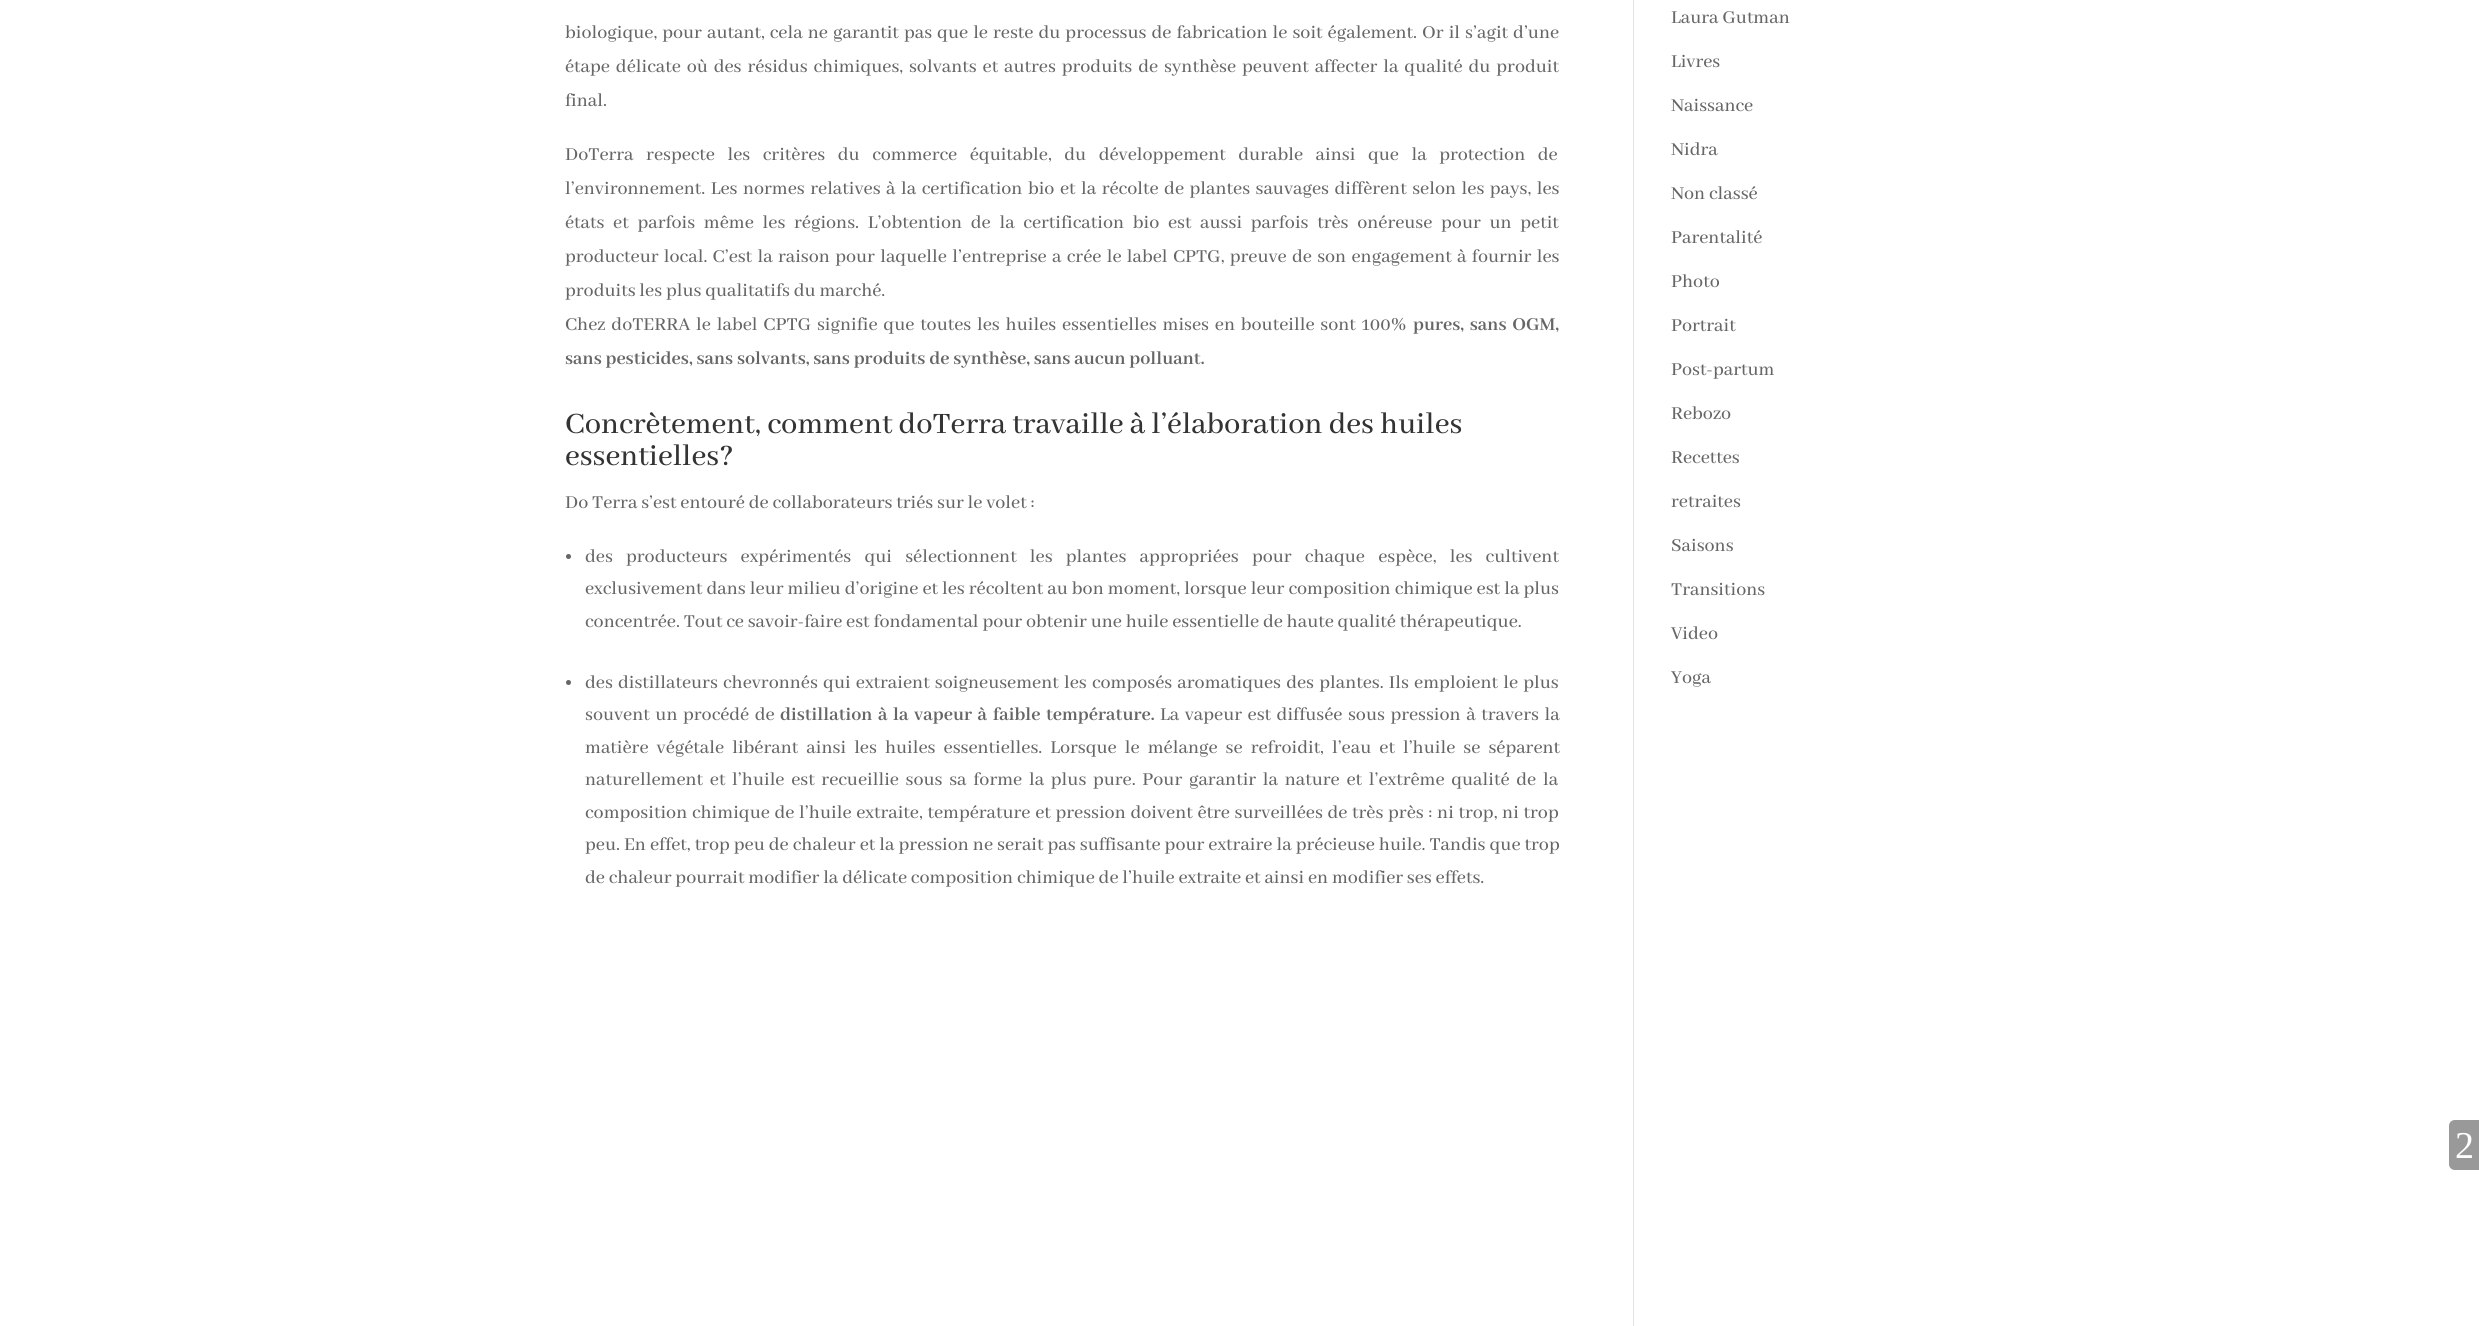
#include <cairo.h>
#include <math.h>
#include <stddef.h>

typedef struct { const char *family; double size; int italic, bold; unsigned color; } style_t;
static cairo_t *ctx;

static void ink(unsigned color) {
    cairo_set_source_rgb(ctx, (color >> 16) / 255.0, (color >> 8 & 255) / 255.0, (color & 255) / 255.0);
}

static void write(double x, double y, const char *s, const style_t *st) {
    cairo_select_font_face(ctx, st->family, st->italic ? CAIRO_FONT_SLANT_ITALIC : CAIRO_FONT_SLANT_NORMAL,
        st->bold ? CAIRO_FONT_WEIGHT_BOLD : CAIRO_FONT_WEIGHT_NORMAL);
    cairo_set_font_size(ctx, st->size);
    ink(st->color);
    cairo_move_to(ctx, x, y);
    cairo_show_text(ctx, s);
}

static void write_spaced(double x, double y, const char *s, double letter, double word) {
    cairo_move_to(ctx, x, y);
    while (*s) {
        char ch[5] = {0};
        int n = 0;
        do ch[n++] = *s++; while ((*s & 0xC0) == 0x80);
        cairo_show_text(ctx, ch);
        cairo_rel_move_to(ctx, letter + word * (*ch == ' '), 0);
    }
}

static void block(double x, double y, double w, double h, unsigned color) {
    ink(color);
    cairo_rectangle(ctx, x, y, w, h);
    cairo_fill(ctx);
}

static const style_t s1 = {"Abhaya Libre Medium Medium", 20, 0, 0, 0x666666};
static const style_t s2 = {"Abhaya Libre", 20, 0, 1, 0x666666};
static const style_t s3 = {"Abhaya Libre Medium Medium", 32.5, 0, 0, 0x333333};
static const style_t s4 = {"Liberation Serif", 38, 0, 0, 0xffffff};

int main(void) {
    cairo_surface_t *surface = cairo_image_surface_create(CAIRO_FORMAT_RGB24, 2479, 1326);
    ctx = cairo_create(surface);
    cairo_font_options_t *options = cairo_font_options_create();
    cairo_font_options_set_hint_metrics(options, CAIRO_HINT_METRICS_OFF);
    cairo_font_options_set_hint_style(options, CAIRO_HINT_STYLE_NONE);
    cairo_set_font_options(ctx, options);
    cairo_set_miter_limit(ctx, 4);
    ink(0xffffff);
    cairo_paint(ctx);
    block(1633, 0, 1, 1326, 0xe2e2e2);
    cairo_select_font_face(ctx, "Abhaya Libre Medium Medium", CAIRO_FONT_SLANT_NORMAL, CAIRO_FONT_WEIGHT_NORMAL);
    cairo_set_font_size(ctx, 20);
    ink(0x666666);
    write_spaced(565, 38, "biologique, pour autant, cela ne garantit pas que le reste du processus de fabrication le soit également. Or il s’agit d’une", 0, 1.25);
    write_spaced(565, 72, "étape délicate où des résidus chimiques, solvants et autres produits de synthèse peuvent affecter la qualité du produit", 0, 2.1);
    write(565, 106, "final.", &s1);
    write_spaced(565, 160, "DoTerra respecte les critères du commerce équitable, du développement durable ainsi que la protection de", 0, 8.75);
    write_spaced(565, 194, "l’environnement. Les normes relatives à la certification bio et la récolte de plantes sauvages diffèrent selon les pays, les", 0, 1.7);
    write_spaced(565, 228, "états et parfois même les régions. L’obtention de la certification bio est aussi parfois très onéreuse pour un petit", 0, 4.9);
    write_spaced(565, 262, "producteur local. C’est la raison pour laquelle l’entreprise a crée le label CPTG, preuve de son engagement à fournir les", 0, 1.5);
    write(565, 296, "produits les plus qualitatifs du marché.", &s1);
    write_spaced(565, 330, "Chez doTERRA le label CPTG signifie que toutes les huiles essentielles mises en bouteille sont 100%", 0, 2);
    cairo_select_font_face(ctx, "Abhaya Libre", CAIRO_FONT_SLANT_NORMAL, CAIRO_FONT_WEIGHT_BOLD);
    write_spaced(1413, 330, "pures, sans OGM,", 0, 2);
    write(565, 364, "sans pesticides, sans solvants, sans produits de synthèse, sans aucun polluant.", &s2);
    write(565, 433, "Concrètement, comment doTerra travaille à l’élaboration des huiles", &s3);
    write(565, 465, "essentielles?", &s3);
    write(565, 508, "Do Terra s’est entouré de collaborateurs triés sur le volet :", &s1);
    cairo_new_path(ctx);
    cairo_arc(ctx, 568.5, 556.5, 2.5, 0, 2 * M_PI);
    cairo_fill(ctx);
    write_spaced(585, 562, "des producteurs expérimentés qui sélectionnent les plantes appropriées pour chaque espèce, les cultivent", 0, 9.4);
    write_spaced(585, 594, "exclusivement dans leur milieu d’origine et les récoltent au bon moment, lorsque leur composition chimique est la plus", 0, 0.25);
    write(585, 627, "concentrée. Tout ce savoir-faire est fondamental pour obtenir une huile essentielle de haute qualité thérapeutique.", &s1);
    cairo_new_path(ctx);
    cairo_arc(ctx, 568.5, 682.5, 2.5, 0, 2 * M_PI);
    cairo_fill(ctx);
    write_spaced(585, 688, "des distillateurs chevronnés qui extraient soigneusement les composés aromatiques des plantes. Ils emploient le plus", 0, 1.4);
    write_spaced(585, 720, "souvent un procédé de", 0, 1.75);
    cairo_select_font_face(ctx, "Abhaya Libre", CAIRO_FONT_SLANT_NORMAL, CAIRO_FONT_WEIGHT_BOLD);
    write_spaced(780, 720, "distillation à la vapeur à faible température.", 0, 1.75);
    cairo_select_font_face(ctx, "Abhaya Libre Medium Medium", CAIRO_FONT_SLANT_NORMAL, CAIRO_FONT_WEIGHT_NORMAL);
    write_spaced(1160, 720, "La vapeur est diffusée sous pression à travers la", 0, 1.75);
    write_spaced(585, 753, "matière végétale libérant ainsi les huiles essentielles. Lorsque le mélange se refroidit, l’eau et l’huile se séparent", 0, 4.25);
    write_spaced(585, 785, "naturellement et l’huile est recueillie sous sa forme la plus pure. Pour garantir la nature et l’extrême qualité de la", 0, 2.9);
    write_spaced(585, 818, "composition chimique de l’huile extraite, température et pression doivent être surveillées de très près : ni trop, ni trop", 0, 0.9);
    write_spaced(585, 850, "peu. En effet, trop peu de chaleur et la pression ne serait pas suffisante pour extraire la précieuse huile. Tandis que trop", 0, 0.25);
    write(585, 883, "de chaleur pourrait modifier la délicate composition chimique de l’huile extraite et ainsi en modifier ses effets.", &s1);
    write(1671, 23, "Laura Gutman", &s1);
    write(1671, 67, "Livres", &s1);
    write(1671, 111, "Naissance", &s1);
    write(1671, 155, "Nidra", &s1);
    write(1671, 199, "Non classé", &s1);
    write(1671, 243, "Parentalité", &s1);
    write(1671, 287, "Photo", &s1);
    write(1671, 331, "Portrait", &s1);
    write(1671, 375, "Post-partum", &s1);
    write(1671, 419, "Rebozo", &s1);
    write(1671, 463, "Recettes", &s1);
    write(1671, 507, "retraites", &s1);
    write(1671, 551, "Saisons", &s1);
    write(1671, 595, "Transitions", &s1);
    write(1671, 639, "Video", &s1);
    write(1671, 683, "Yoga", &s1);
    ink(0x999999);
    cairo_new_path(ctx);
    cairo_move_to(ctx, 2455, 1120);
    cairo_line_to(ctx, 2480, 1120);
    cairo_line_to(ctx, 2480, 1170);
    cairo_line_to(ctx, 2455, 1170);
    cairo_curve_to(ctx, 2451.5, 1170, 2449, 1167.5, 2449, 1164);
    cairo_line_to(ctx, 2449, 1126);
    cairo_curve_to(ctx, 2449, 1122.5, 2451.5, 1120, 2455, 1120);
    cairo_close_path(ctx);
    cairo_fill(ctx);
    write(2455, 1158, "2", &s4);
    cairo_surface_write_to_png(surface, "screenshot.png");
    cairo_font_options_destroy(options);
    cairo_destroy(ctx);
    cairo_surface_destroy(surface);
    return 0;
}
